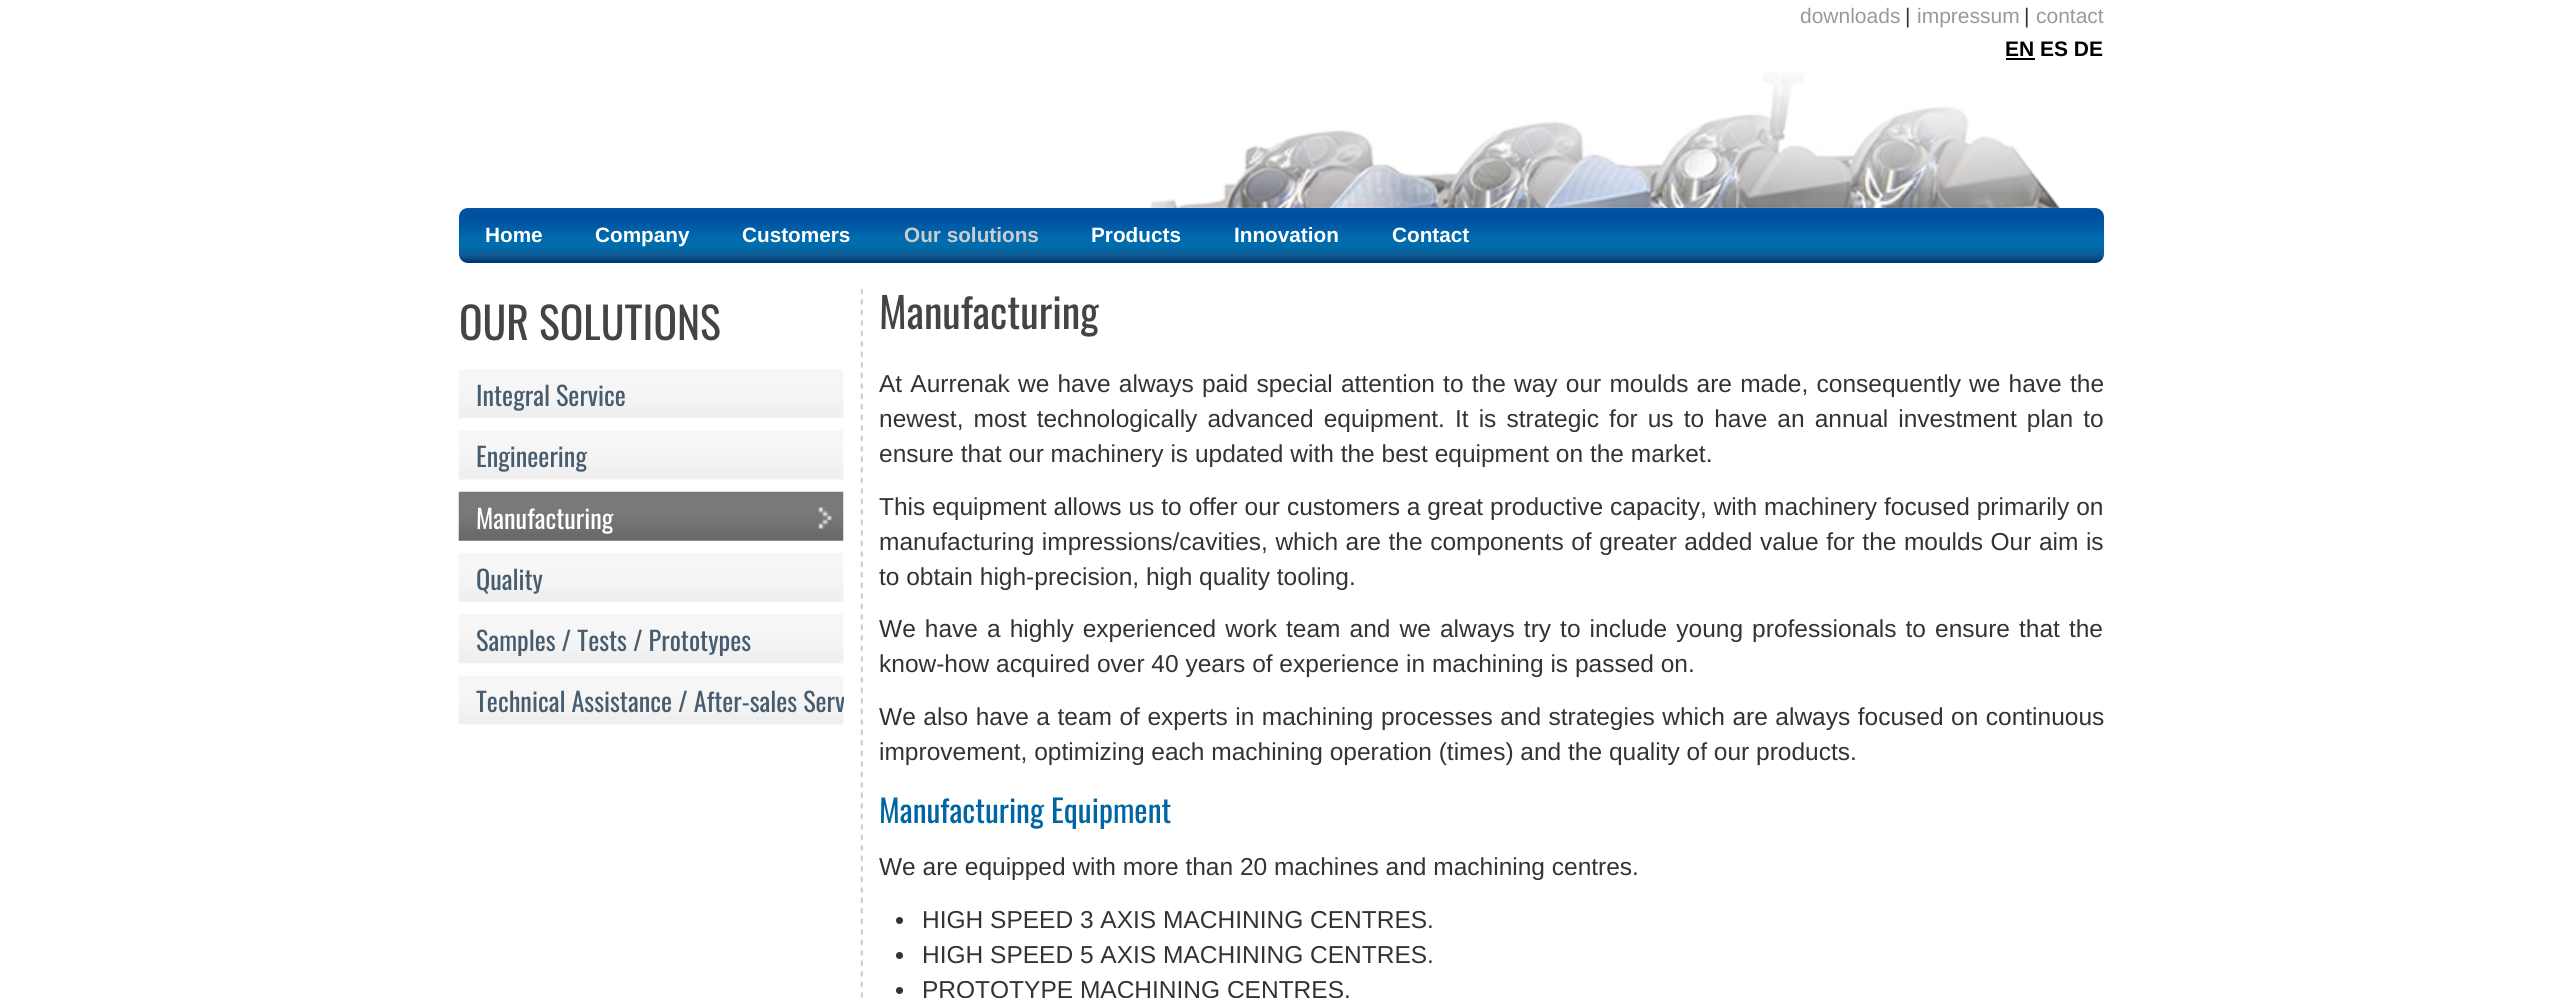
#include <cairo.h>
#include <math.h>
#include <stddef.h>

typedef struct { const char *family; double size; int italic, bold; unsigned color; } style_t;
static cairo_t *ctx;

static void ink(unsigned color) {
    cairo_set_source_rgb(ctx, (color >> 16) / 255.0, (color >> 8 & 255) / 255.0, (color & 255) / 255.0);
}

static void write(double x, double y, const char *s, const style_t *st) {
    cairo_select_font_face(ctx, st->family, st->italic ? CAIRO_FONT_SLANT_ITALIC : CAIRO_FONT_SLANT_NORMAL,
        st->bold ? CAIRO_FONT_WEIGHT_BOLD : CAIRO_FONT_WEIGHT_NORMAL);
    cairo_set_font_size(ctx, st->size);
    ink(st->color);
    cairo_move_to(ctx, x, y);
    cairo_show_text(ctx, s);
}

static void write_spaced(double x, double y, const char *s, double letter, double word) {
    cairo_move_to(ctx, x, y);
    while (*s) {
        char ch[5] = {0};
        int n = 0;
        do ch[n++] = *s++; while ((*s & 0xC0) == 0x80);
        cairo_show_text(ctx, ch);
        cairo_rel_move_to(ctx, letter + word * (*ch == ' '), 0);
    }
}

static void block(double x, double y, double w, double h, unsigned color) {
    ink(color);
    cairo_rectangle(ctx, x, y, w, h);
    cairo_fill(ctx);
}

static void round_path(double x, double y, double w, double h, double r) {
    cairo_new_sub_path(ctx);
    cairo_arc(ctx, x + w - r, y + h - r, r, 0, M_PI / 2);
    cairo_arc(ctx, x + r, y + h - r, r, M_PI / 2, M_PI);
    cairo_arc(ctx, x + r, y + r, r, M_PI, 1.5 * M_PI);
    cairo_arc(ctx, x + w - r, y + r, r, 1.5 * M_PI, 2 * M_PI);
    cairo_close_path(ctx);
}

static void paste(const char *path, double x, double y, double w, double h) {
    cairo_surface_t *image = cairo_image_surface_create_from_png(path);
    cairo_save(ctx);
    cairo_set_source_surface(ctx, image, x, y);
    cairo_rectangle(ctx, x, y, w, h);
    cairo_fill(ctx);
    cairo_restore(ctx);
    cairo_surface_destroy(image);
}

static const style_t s1 = {"Liberation Sans", 21, 0, 0, 0x999999};
static const style_t s2 = {"Liberation Sans", 21, 0, 0, 0x333333};
static const style_t s3 = {"Liberation Sans", 21, 0, 1, 0x000000};
static const style_t s4 = {"Liberation Sans", 20.75, 0, 1, 0xffffff};
static const style_t s5 = {"Liberation Sans", 20.75, 0, 1, 0xcccccc};
static const style_t s6 = {"Oswald", 43.75, 0, 0, 0x444444};
static const style_t s7 = {"Oswald", 26.25, 0, 0, 0x475d6f};
static const style_t s8 = {"Oswald", 26.25, 0, 0, 0xffffff};
static const style_t s9 = {"Oswald", 42, 0, 0, 0x444444};
static const style_t s10 = {"Liberation Sans", 24.5, 0, 0, 0x333333};
static const style_t s11 = {"Oswald", 31.5, 0, 0, 0x0066a3};

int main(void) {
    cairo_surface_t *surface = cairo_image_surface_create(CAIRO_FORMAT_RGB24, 2561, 998);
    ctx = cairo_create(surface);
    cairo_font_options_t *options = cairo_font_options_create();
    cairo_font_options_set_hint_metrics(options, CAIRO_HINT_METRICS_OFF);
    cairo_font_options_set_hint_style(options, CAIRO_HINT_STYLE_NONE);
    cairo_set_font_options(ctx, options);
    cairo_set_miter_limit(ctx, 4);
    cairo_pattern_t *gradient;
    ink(0xffffff);
    cairo_paint(ctx);
    paste("pic1.png", 1149, 71, 912, 137);
    write(1800, 23, "downloads", &s1);
    write(1905, 23, "|", &s2);
    write(1917, 23, "impressum", &s1);
    write(2024, 23, "|", &s2);
    write(2036, 23, "contact", &s1);
    write(2005, 56, "EN ES DE", &s3);
    block(2006, 58, 29, 2, 0x000000);
    gradient = cairo_pattern_create_linear(1281, 208, 1281, 263);
    cairo_pattern_add_color_stop_rgba(gradient, 0, 0.498, 0.494, 0.482, 1);
    cairo_pattern_add_color_stop_rgba(gradient, 0.01, 0, 0.325, 0.62, 1);
    cairo_pattern_add_color_stop_rgba(gradient, 0.01, 0, 0.314, 0.627, 1);
    cairo_pattern_add_color_stop_rgba(gradient, 0.23, 0, 0.325, 0.635, 1);
    cairo_pattern_add_color_stop_rgba(gradient, 0.54, 0, 0.416, 0.678, 1);
    cairo_pattern_add_color_stop_rgba(gradient, 0.66, 0, 0.427, 0.678, 1);
    cairo_pattern_add_color_stop_rgba(gradient, 0.78, 0, 0.396, 0.631, 1);
    cairo_pattern_add_color_stop_rgba(gradient, 0.82, 0.063, 0.376, 0.608, 1);
    cairo_pattern_add_color_stop_rgba(gradient, 0.83, 0.055, 0.365, 0.596, 1);
    cairo_pattern_add_color_stop_rgba(gradient, 0.85, 0.075, 0.357, 0.584, 1);
    cairo_pattern_add_color_stop_rgba(gradient, 0.88, 0.051, 0.325, 0.553, 1);
    cairo_pattern_add_color_stop_rgba(gradient, 0.89, 0.063, 0.314, 0.541, 1);
    cairo_pattern_add_color_stop_rgba(gradient, 0.91, 0.039, 0.302, 0.525, 1);
    cairo_pattern_add_color_stop_rgba(gradient, 0.93, 0, 0.278, 0.502, 1);
    cairo_pattern_add_color_stop_rgba(gradient, 0.99, 0, 0.2, 0.416, 1);
    cairo_pattern_add_color_stop_rgba(gradient, 1, 0, 0.482, 0.69, 1);
    cairo_set_source(ctx, gradient);
    cairo_pattern_destroy(gradient);
    round_path(459, 208, 1645, 55, 9);
    cairo_fill(ctx);
    write(485, 242, "Home", &s4);
    write(595, 242, "Company", &s4);
    write(742, 242, "Customers", &s4);
    write(904, 242, "Our solutions", &s5);
    write(1091, 242, "Products", &s4);
    write(1234, 242, "Innovation", &s4);
    write(1392, 242, "Contact", &s4);
    write(459, 340, "OUR SOLUTIONS", &s6);
    paste("pic2.png", 458, 369, 386, 50);
    write(476, 406, "Integral Service", &s7);
    paste("pic3.png", 458, 430, 386, 50);
    write(476, 467, "Engineering", &s7);
    paste("pic4.png", 458, 491, 386, 50);
    paste("pic5.png", 818, 507, 14, 22);
    write(476, 529, "Manufacturing", &s8);
    paste("pic6.png", 458, 553, 386, 49);
    write(476, 590, "Quality", &s7);
    paste("pic7.png", 458, 614, 386, 50);
    write(476, 651, "Samples / Tests / Prototypes", &s7);
    paste("pic3.png", 458, 675, 386, 50);
    cairo_save(ctx);
    cairo_rectangle(ctx, 459, 369, 385, 368);
    cairo_clip(ctx);
    write(476, 712, "Technical Assistance / After-sales Serv", &s7);
    cairo_restore(ctx);
    paste("pic8.png", 860, 288, 3, 710);
    write(879, 329, "Manufacturing", &s9);
    cairo_select_font_face(ctx, "Liberation Sans", CAIRO_FONT_SLANT_NORMAL, CAIRO_FONT_WEIGHT_NORMAL);
    cairo_set_font_size(ctx, 24.5);
    ink(0x333333);
    write_spaced(879, 392, "At Aurrenak we have always paid special attention to the way our moulds are made, consequently we have the", 0, 1.4);
    write_spaced(879, 427, "newest, most technologically advanced equipment. It is strategic for us to have an annual investment plan to", 0, 3.25);
    write(879, 462, "ensure that our machinery is updated with the best equipment on the market.", &s10);
    write_spaced(879, 515, "This equipment allows us to offer our customers a great productive capacity, with machinery focused primarily on", 0, 0.1);
    write_spaced(879, 550, "manufacturing impressions/cavities, which are the components of greater added value for the moulds Our aim is", 0, 0.75);
    write(879, 585, "to obtain high-precision, high quality tooling.", &s10);
    write_spaced(879, 637, "We have a highly experienced work team and we always try to include young professionals to ensure that the", 0, 2.25);
    write(879, 672, "know-how acquired over 40 years of experience in machining is passed on.", &s10);
    write_spaced(879, 725, "We also have a team of experts in machining processes and strategies which are always focused on continuous", 0, 0.7);
    write(879, 760, "improvement, optimizing each machining operation (times) and the quality of our products.", &s10);
    write(879, 823, "Manufacturing Equipment", &s11);
    write(879, 875, "We are equipped with more than 20 machines and machining centres.", &s10);
    cairo_new_path(ctx);
    cairo_arc(ctx, 899.5, 920.5, 3.5, 0, 2 * M_PI);
    cairo_fill(ctx);
    write(922, 928, "HIGH SPEED 3 AXIS MACHINING CENTRES.", &s10);
    cairo_new_path(ctx);
    cairo_arc(ctx, 899.5, 955.5, 3.5, 0, 2 * M_PI);
    cairo_fill(ctx);
    write(922, 963, "HIGH SPEED 5 AXIS MACHINING CENTRES.", &s10);
    cairo_new_path(ctx);
    cairo_arc(ctx, 899.5, 990.5, 3.5, 0, 2 * M_PI);
    cairo_fill(ctx);
    write(922, 998, "PROTOTYPE MACHINING CENTRES.", &s10);
    cairo_surface_write_to_png(surface, "screenshot.png");
    cairo_font_options_destroy(options);
    cairo_destroy(ctx);
    cairo_surface_destroy(surface);
    return 0;
}
